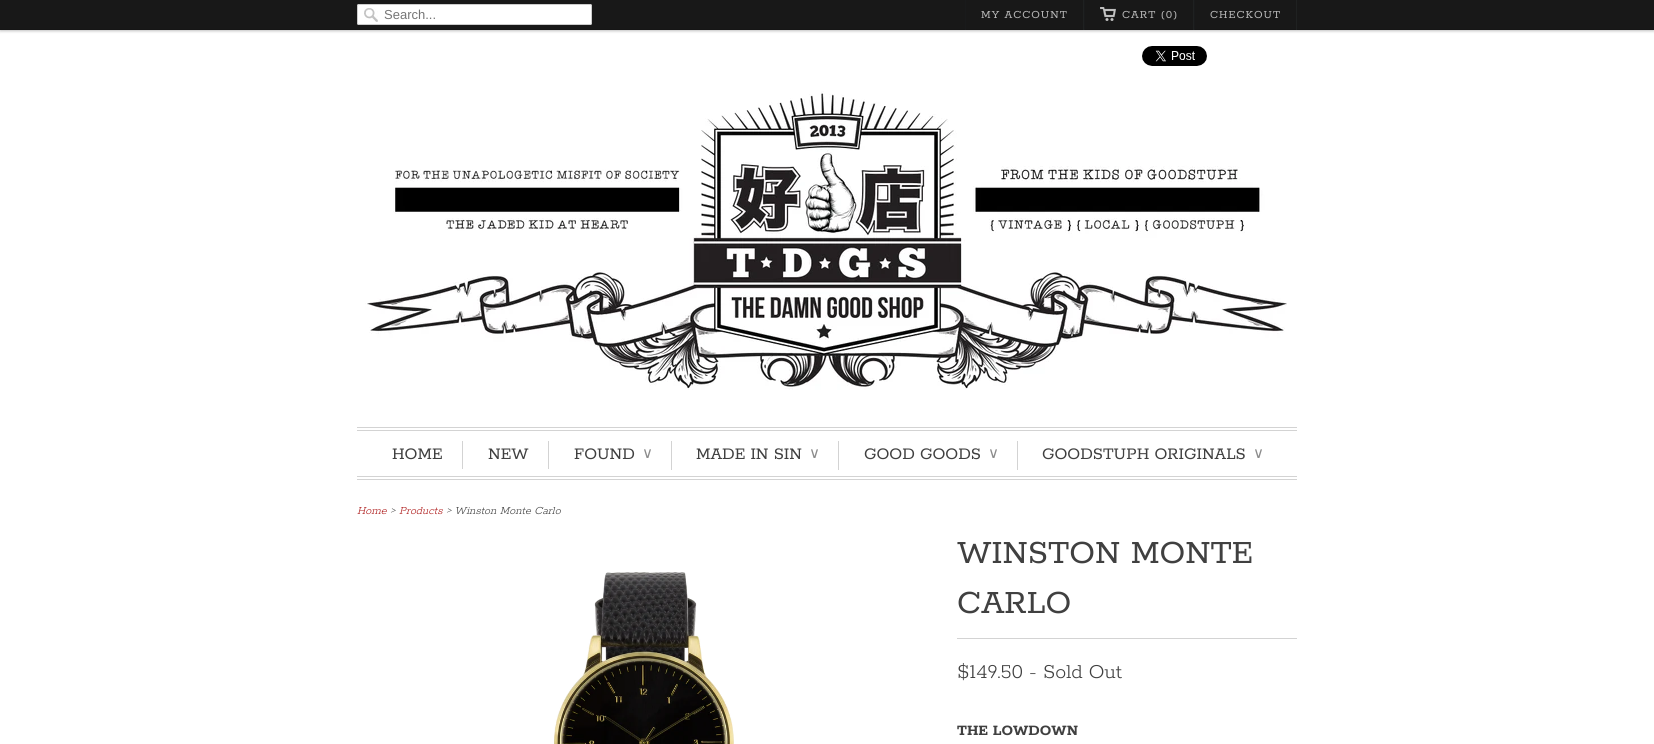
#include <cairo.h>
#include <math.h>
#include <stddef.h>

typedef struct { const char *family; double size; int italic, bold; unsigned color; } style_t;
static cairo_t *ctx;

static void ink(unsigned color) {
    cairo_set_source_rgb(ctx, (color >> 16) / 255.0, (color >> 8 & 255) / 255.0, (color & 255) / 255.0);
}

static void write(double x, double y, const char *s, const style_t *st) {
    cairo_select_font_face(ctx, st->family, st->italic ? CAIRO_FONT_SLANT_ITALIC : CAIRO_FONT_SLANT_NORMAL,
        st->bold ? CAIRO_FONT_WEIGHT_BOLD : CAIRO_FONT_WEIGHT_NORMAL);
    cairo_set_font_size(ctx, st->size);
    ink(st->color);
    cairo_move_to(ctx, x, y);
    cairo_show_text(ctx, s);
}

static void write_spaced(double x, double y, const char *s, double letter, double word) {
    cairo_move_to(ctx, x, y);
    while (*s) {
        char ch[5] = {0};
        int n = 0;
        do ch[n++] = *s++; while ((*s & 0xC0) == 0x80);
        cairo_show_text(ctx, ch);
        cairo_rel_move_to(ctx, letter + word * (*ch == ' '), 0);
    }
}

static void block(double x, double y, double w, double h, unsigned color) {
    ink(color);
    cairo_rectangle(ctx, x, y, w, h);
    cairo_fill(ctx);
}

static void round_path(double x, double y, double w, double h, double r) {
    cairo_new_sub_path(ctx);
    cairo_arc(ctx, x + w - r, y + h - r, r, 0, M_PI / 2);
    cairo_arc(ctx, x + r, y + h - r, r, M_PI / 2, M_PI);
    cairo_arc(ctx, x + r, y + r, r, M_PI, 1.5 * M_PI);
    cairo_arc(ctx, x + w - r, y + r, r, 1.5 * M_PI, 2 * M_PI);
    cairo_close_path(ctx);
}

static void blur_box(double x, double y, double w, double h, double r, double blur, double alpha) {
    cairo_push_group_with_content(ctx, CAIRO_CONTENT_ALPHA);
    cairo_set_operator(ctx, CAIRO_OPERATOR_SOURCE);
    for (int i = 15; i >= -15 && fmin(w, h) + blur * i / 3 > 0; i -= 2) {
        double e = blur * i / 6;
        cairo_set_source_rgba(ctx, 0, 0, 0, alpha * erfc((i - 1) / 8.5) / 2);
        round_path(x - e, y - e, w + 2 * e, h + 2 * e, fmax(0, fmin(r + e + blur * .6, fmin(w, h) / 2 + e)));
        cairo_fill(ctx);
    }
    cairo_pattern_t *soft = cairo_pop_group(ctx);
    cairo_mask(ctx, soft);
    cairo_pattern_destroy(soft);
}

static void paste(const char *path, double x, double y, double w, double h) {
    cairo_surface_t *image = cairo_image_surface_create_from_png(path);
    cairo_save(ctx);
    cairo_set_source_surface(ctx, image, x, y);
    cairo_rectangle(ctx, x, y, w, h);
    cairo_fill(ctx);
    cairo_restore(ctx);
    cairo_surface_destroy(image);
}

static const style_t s1 = {"Liberation Sans", 13, 0, 0, 0x757575};
static const style_t s2 = {"Rokkitt", 18, 0, 0, 0x404040};
static const style_t s3 = {"DejaVu Sans", 15, 0, 0, 0x8c8c8c};
static const style_t s4 = {"Rokkitt Light", 12, 1, 0, 0xad1a1a};
static const style_t s5 = {"Rokkitt Light", 12, 1, 0, 0x404040};
static const style_t s6 = {"Rokkitt", 36, 0, 0, 0x404040};
static const style_t s7 = {"Rokkitt Light", 22, 0, 0, 0x404040};
static const style_t s8 = {"Rokkitt", 16, 0, 1, 0x404040};

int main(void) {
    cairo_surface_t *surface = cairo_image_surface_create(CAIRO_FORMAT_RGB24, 1654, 744);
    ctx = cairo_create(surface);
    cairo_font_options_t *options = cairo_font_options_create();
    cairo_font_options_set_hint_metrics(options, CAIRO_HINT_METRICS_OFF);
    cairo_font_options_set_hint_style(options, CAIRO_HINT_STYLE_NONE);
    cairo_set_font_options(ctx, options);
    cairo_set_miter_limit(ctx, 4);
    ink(0xffffff);
    cairo_paint(ctx);
    ink(0x000000);
    blur_box(0, 1, 1654, 30, 0, 1.5, 0.25);
    block(0, 0, 1654, 29, 0x181818);
    block(0, 29, 1654, 1, 0x161616);
    ink(0xffffff);
    round_path(357, 4, 235, 21, 2);
    cairo_fill(ctx);
    paste("pic1.png", 364, 8, 14, 14);
    round_path(357.5, 4.5, 234, 20, 1.5);
    ink(0xcccccc);
    cairo_set_line_width(ctx, 1);
    cairo_stroke(ctx);
    write(384, 19, "Search...", &s1);
    block(1083, 0, 1, 30, 0x1f2121);
    block(965, 0, 1, 30, 0x191a1b);
    cairo_select_font_face(ctx, "Rokkitt", CAIRO_FONT_SLANT_NORMAL, CAIRO_FONT_WEIGHT_NORMAL);
    cairo_set_font_size(ctx, 12);
    ink(0xb6b6b6);
    write_spaced(981, 18, "MY ACCOUNT", 1, 0);
    block(1193, 0, 1, 30, 0x1f2121);
    block(1084, 0, 1, 30, 0x191a1b);
    paste("pic2.png", 1100, 7, 16, 14);
    ink(0xb6b6b6);
    write_spaced(1122, 18, "CART (0)", 1, 0);
    block(1296, 0, 1, 30, 0x1f2121);
    block(1194, 0, 1, 30, 0x191a1b);
    ink(0xb6b6b6);
    write_spaced(1210, 18, "CHECKOUT", 1, 0);
    paste("pic3.png", 1142, 46, 65, 20);
    paste("pic4.png", 365, 91, 922, 299);
    block(357, 427, 940, 1, 0xd3d3d3);
    block(357, 430, 940, 1, 0xd3d3d3);
    block(357, 476, 940, 1, 0xd3d3d3);
    block(357, 479, 940, 1, 0xd3d3d3);
    block(462, 441, 1, 28, 0xd3d3d3);
    write(392, 459, "HOME", &s2);
    block(548, 441, 1, 28, 0xd3d3d3);
    write(488, 459, "NEW", &s2);
    block(671, 441, 1, 29, 0xd3d3d3);
    write(574, 459, "FOUND", &s2);
    write(642, 458, "∨", &s3);
    block(838, 441, 1, 29, 0xd3d3d3);
    write(696, 459, "MADE IN SIN", &s2);
    write(809, 458, "∨", &s3);
    block(1017, 441, 1, 29, 0xd3d3d3);
    write(864, 459, "GOOD GOODS", &s2);
    write(988, 458, "∨", &s3);
    write(1042, 459, "GOODSTUPH ORIGINALS", &s2);
    write(1253, 458, "∨", &s3);
    write(357, 514, "Home", &s4);
    write(390, 514, ">", &s5);
    write(399, 514, "Products", &s4);
    write(446, 514, "> Winston Monte Carlo", &s5);
    paste("pic5.png", 554, 572, 180, 172);
    block(957, 638, 340, 1, 0xd3d3d3);
    write(957, 563, "WINSTON MONTE", &s6);
    write(957, 613, "CARLO", &s6);
    write(957, 678, "$149.50 - Sold Out", &s7);
    write(957, 735, "THE LOWDOWN", &s8);
    cairo_surface_write_to_png(surface, "screenshot.png");
    cairo_font_options_destroy(options);
    cairo_destroy(ctx);
    cairo_surface_destroy(surface);
    return 0;
}
